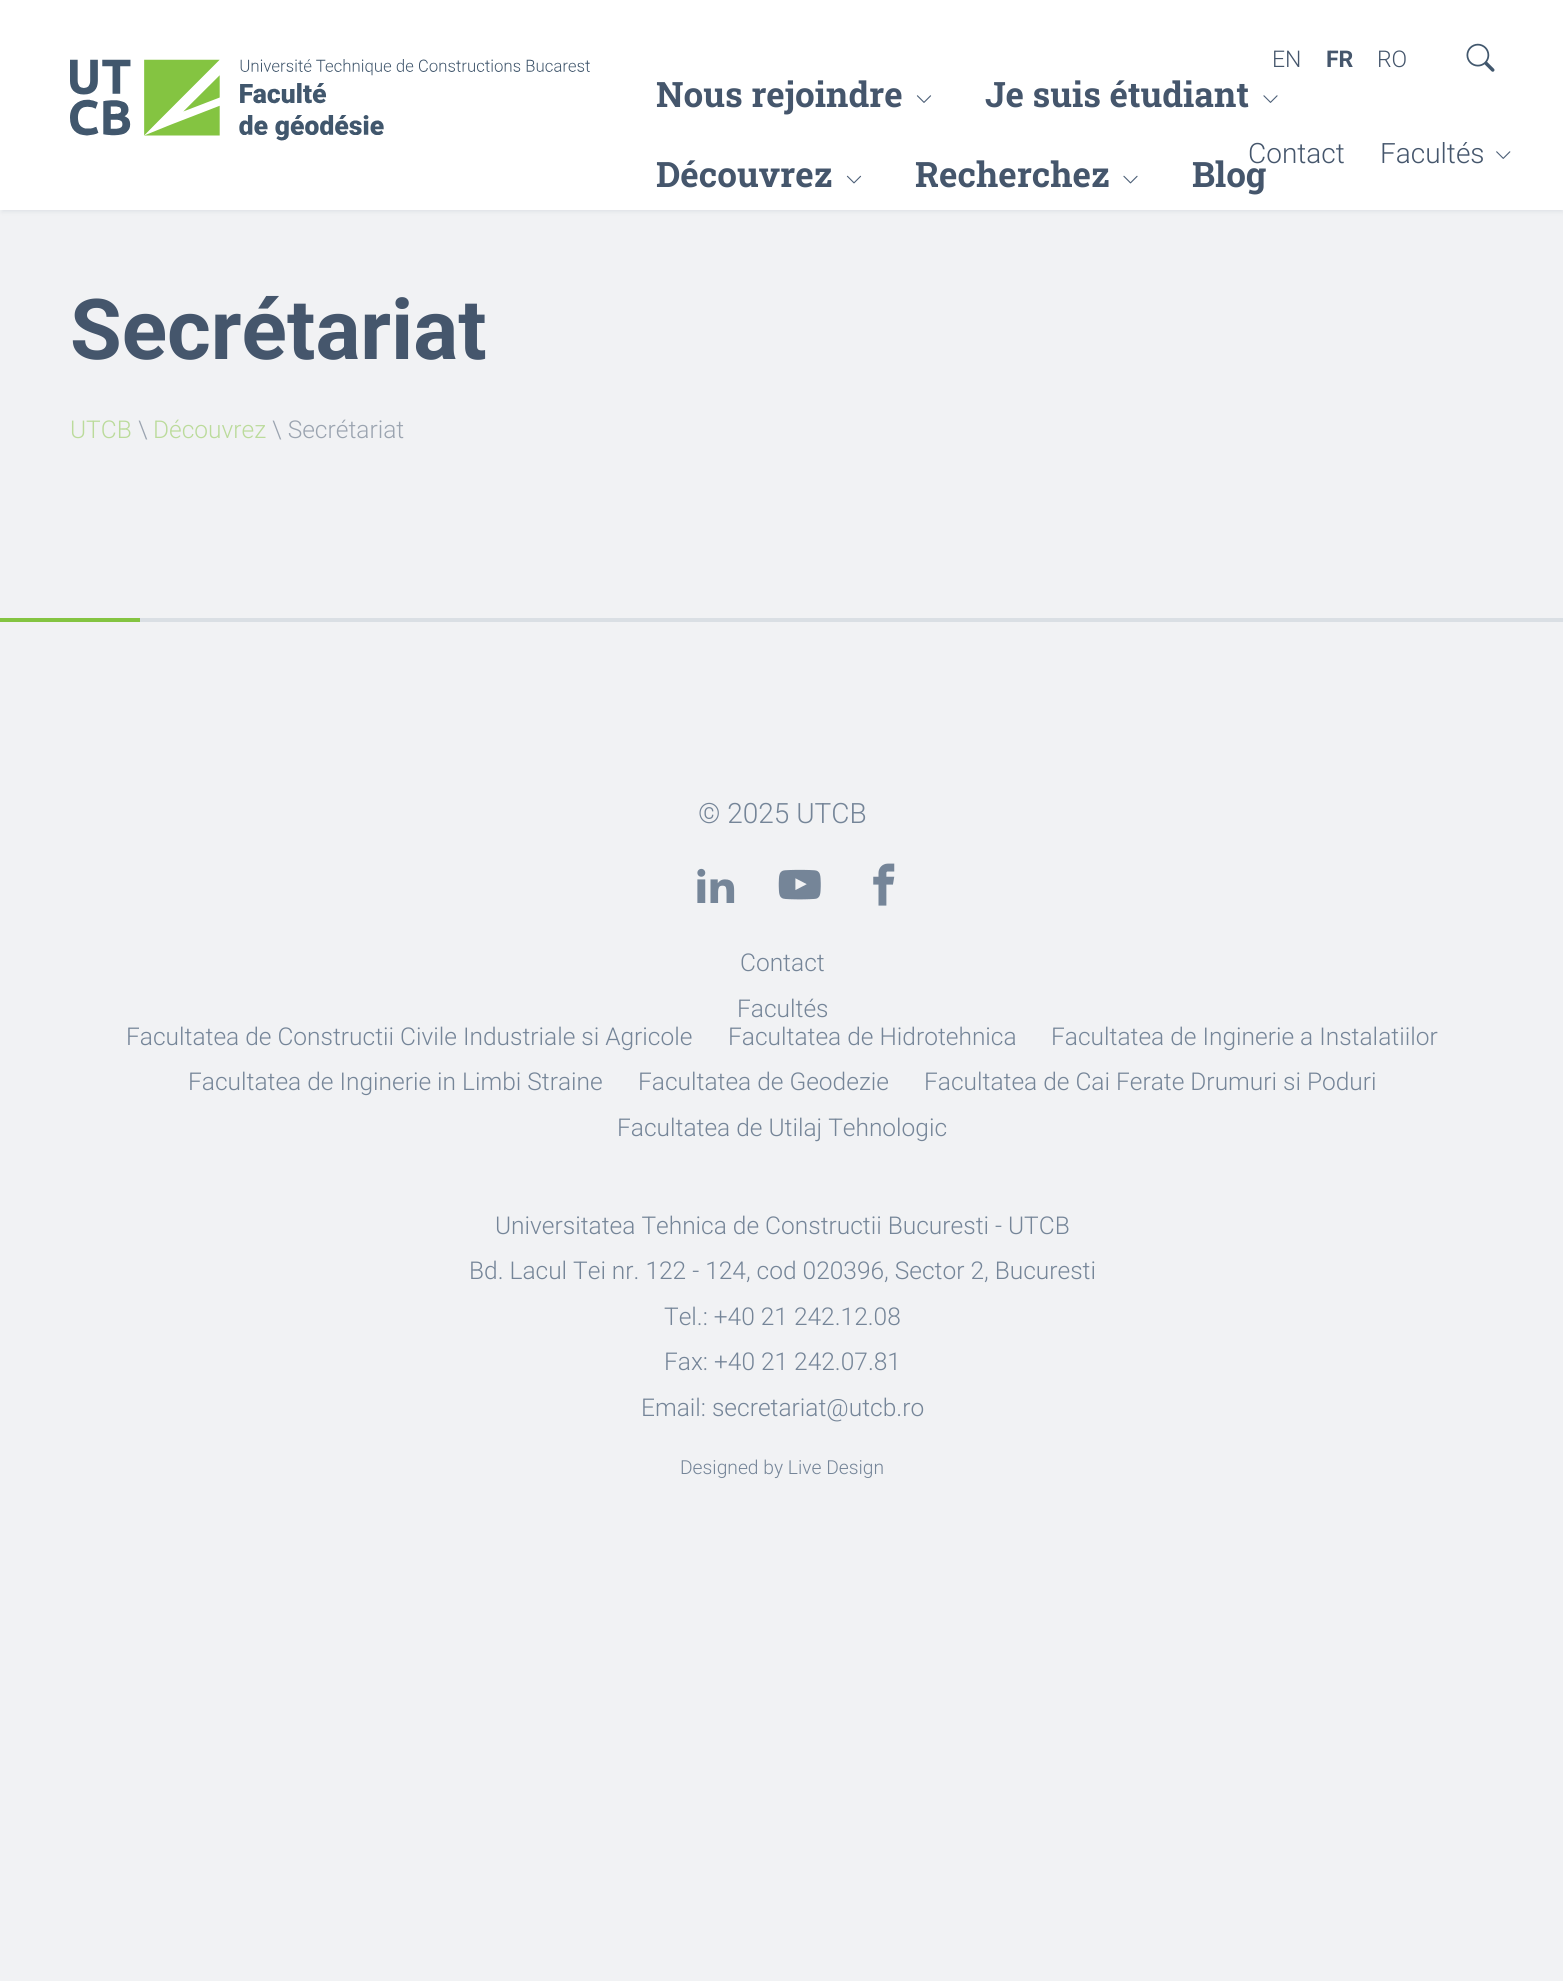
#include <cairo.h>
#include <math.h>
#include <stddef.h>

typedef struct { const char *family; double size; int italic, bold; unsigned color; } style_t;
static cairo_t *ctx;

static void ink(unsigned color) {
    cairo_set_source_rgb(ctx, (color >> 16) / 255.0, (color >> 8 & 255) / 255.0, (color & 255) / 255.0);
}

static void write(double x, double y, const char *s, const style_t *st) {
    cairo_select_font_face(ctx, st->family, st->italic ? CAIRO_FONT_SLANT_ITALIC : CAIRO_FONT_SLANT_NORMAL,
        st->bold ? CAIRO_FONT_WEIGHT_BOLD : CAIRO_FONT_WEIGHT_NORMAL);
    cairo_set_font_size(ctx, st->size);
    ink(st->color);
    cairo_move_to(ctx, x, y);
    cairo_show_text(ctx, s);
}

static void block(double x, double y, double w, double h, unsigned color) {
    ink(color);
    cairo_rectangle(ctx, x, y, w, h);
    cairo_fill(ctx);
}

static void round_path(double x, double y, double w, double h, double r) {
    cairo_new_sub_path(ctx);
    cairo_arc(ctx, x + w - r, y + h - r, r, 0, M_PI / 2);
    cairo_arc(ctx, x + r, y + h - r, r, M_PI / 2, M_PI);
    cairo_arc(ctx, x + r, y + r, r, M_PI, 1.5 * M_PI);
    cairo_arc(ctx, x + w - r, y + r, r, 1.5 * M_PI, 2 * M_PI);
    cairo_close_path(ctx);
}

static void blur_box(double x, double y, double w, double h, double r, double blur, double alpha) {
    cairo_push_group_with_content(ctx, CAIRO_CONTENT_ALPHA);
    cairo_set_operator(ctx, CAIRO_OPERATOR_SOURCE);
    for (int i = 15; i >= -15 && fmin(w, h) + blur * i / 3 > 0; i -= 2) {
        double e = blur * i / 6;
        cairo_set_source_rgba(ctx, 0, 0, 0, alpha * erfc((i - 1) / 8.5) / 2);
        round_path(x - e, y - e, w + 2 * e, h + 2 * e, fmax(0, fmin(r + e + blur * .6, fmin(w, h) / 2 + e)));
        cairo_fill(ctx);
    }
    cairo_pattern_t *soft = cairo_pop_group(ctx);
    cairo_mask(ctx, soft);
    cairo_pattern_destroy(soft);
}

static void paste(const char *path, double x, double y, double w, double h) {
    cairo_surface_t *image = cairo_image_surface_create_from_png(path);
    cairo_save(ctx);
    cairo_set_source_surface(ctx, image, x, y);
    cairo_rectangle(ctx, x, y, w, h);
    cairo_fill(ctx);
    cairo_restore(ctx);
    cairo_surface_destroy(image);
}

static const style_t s1 = {"Roboto Light", 23, 0, 0, 0x45566c};
static const style_t s2 = {"Roboto", 23, 0, 1, 0x45566c};
static const style_t s3 = {"Roboto Slab", 35, 0, 1, 0x45566c};
static const style_t s4 = {"Roboto Light", 28, 0, 0, 0x45566c};
static const style_t s5 = {"Roboto", 84, 0, 1, 0x45566c};
static const style_t s6 = {"Roboto Light", 24.5, 0, 0, 0xbbdb9b};
static const style_t s7 = {"Roboto Light", 24.5, 0, 0, 0x9ba4b0};
static const style_t s8 = {"Roboto Light", 28, 0, 0, 0x758598};
static const style_t s9 = {"Roboto Light", 24.5, 0, 0, 0x758598};
static const style_t s10 = {"Roboto Light", 19.25, 0, 0, 0x758598};

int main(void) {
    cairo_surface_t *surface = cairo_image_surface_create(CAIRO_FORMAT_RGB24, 1563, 1981);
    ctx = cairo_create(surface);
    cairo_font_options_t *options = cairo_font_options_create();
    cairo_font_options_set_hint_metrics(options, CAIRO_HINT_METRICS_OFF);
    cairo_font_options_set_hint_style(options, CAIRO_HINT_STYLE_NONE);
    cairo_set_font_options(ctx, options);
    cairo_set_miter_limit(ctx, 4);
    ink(0xf1f2f4);
    cairo_paint(ctx);
    ink(0x4c5f77);
    blur_box(2, 5, 1561, 207, 0, 2, 0.1);
    block(0, 0, 1563, 210, 0xffffff);
    paste("pic1.png", 70, 59, 520, 82);
    write(1272, 67, "EN", &s1);
    write(1326, 67, "FR", &s2);
    write(1377, 67, "RO", &s1);
    paste("pic2.png", 1466, 43, 29, 29);
    write(656, 107, "Nous rejoindre", &s3);
    paste("pic3.png", 916, 95, 16, 8);
    write(985, 107, "Je suis étudiant", &s3);
    paste("pic4.png", 1263, 95, 15, 8);
    write(656, 187, "Découvrez", &s3);
    paste("pic5.png", 846, 175, 16, 9);
    write(915, 187, "Recherchez", &s3);
    paste("pic6.png", 1123, 175, 15, 9);
    write(1192, 187, "Blog", &s3);
    write(1248, 163, "Contact", &s4);
    write(1380, 163, "Facultés", &s4);
    paste("pic7.png", 1496, 151, 15, 8);
    write(70, 359, "Secrétariat", &s5);
    write(70, 438, "UTCB", &s6);
    write(138, 438, "\\", &s7);
    write(153, 438, "Découvrez", &s6);
    write(272, 438, "\\ Secrétariat", &s7);
    block(140, 618, 1423, 4, 0xdadfe4);
    block(0, 618, 140, 4, 0x84c441);
    write(698, 823, "© 2025 UTCB", &s8);
    paste("pic8.png", 697, 868, 38, 35);
    paste("pic9.png", 778, 869, 43, 31);
    paste("pic10.png", 873, 863, 22, 43);
    write(740, 971, "Contact", &s9);
    write(737, 1017, "Facultés", &s9);
    write(126, 1045, "Facultatea de Constructii Civile Industriale si Agricole", &s9);
    write(728, 1045, "Facultatea de Hidrotehnica", &s9);
    write(1051, 1045, "Facultatea de Inginerie a Instalatiilor", &s9);
    write(188, 1090, "Facultatea de Inginerie in Limbi Straine", &s9);
    write(638, 1090, "Facultatea de Geodezie", &s9);
    write(924, 1090, "Facultatea de Cai Ferate Drumuri si Poduri", &s9);
    write(617, 1136, "Facultatea de Utilaj Tehnologic", &s9);
    write(495, 1234, "Universitatea Tehnica de Constructii Bucuresti - UTCB", &s9);
    write(469, 1279, "Bd. Lacul Tei nr. 122 - 124, cod 020396, Sector 2, Bucuresti", &s9);
    write(664, 1325, "Tel.: +40 21 242.12.08", &s9);
    write(664, 1370, "Fax: +40 21 242.07.81", &s9);
    write(641, 1416, "Email: secretariat@utcb.ro", &s9);
    write(680, 1474, "Designed by Live Design", &s10);
    cairo_surface_write_to_png(surface, "screenshot.png");
    cairo_font_options_destroy(options);
    cairo_destroy(ctx);
    cairo_surface_destroy(surface);
    return 0;
}
